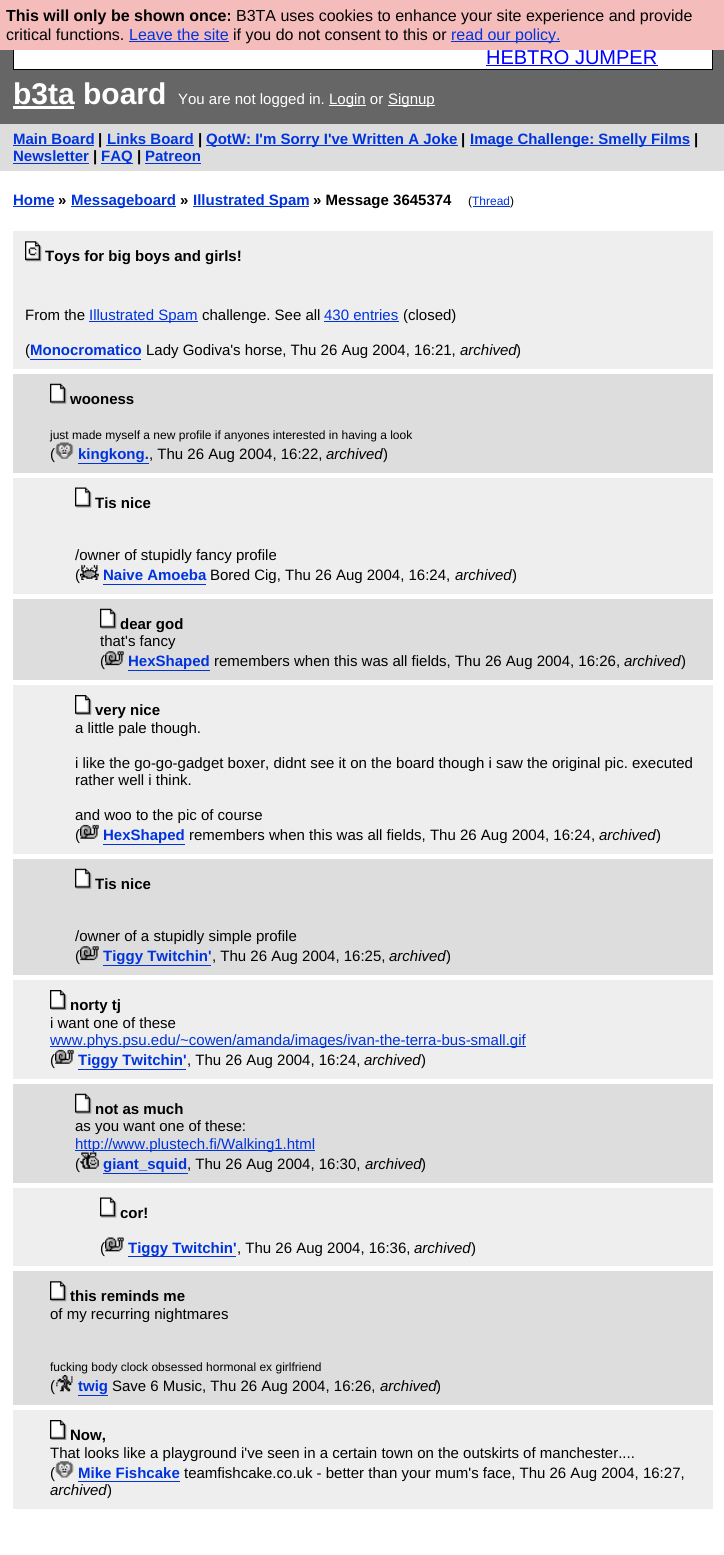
#include <cairo.h>
#include <math.h>
#include <stddef.h>

typedef struct { const char *family; double size; int italic, bold; unsigned color; } style_t;
static cairo_t *ctx;

static void ink(unsigned color) {
    cairo_set_source_rgb(ctx, (color >> 16) / 255.0, (color >> 8 & 255) / 255.0, (color & 255) / 255.0);
}

static void write(double x, double y, const char *s, const style_t *st) {
    cairo_select_font_face(ctx, st->family, st->italic ? CAIRO_FONT_SLANT_ITALIC : CAIRO_FONT_SLANT_NORMAL,
        st->bold ? CAIRO_FONT_WEIGHT_BOLD : CAIRO_FONT_WEIGHT_NORMAL);
    cairo_set_font_size(ctx, st->size);
    ink(st->color);
    cairo_move_to(ctx, x, y);
    cairo_show_text(ctx, s);
}

static void block(double x, double y, double w, double h, unsigned color) {
    ink(color);
    cairo_rectangle(ctx, x, y, w, h);
    cairo_fill(ctx);
}

static void paste(const char *path, double x, double y, double w, double h) {
    cairo_surface_t *image = cairo_image_surface_create_from_png(path);
    cairo_save(ctx);
    cairo_set_source_surface(ctx, image, x, y);
    cairo_rectangle(ctx, x, y, w, h);
    cairo_fill(ctx);
    cairo_restore(ctx);
    cairo_surface_destroy(image);
}

static const style_t s1 = {"Liberation Sans", 16, 0, 1, 0x000000};
static const style_t s2 = {"Liberation Sans", 16, 0, 0, 0x000000};
static const style_t s3 = {"Liberation Sans", 16, 0, 0, 0x0033dd};
static const style_t s4 = {"Liberation Sans", 20, 0, 0, 0x0000ff};
static const style_t s5 = {"Liberation Sans", 30, 0, 1, 0xffffff};
static const style_t s6 = {"Liberation Sans", 15, 0, 0, 0xffffff};
static const style_t s7 = {"Liberation Sans", 15, 0, 1, 0x0033dd};
static const style_t s8 = {"Liberation Sans", 15, 0, 1, 0x000000};
static const style_t s9 = {"Liberation Sans", 12, 0, 0, 0x000000};
static const style_t s10 = {"Liberation Sans", 12, 0, 0, 0x0033dd};
static const style_t s11 = {"Liberation Sans", 15, 0, 0, 0x000000};
static const style_t s12 = {"Liberation Sans", 15, 0, 0, 0x0033dd};
static const style_t s13 = {"Liberation Sans", 15, 1, 0, 0x000000};

int main(void) {
    cairo_surface_t *surface = cairo_image_surface_create(CAIRO_FORMAT_RGB24, 724, 1555);
    ctx = cairo_create(surface);
    cairo_font_options_t *options = cairo_font_options_create();
    cairo_font_options_set_hint_metrics(options, CAIRO_HINT_METRICS_OFF);
    cairo_font_options_set_hint_style(options, CAIRO_HINT_STYLE_NONE);
    cairo_set_font_options(ctx, options);
    cairo_set_miter_limit(ctx, 4);
    ink(0xffffff);
    cairo_paint(ctx);
    block(0, 50, 724, 74, 0x666666);
    block(14, 50, 698, 19, 0xffffff);
    cairo_rectangle(ctx, 13.5, 13.5, 699, 56);
    ink(0x000000);
    cairo_set_line_width(ctx, 1);
    cairo_stroke(ctx);
    block(0, 0, 724, 50, 0xf5bcbc);
    write(6, 21, "This will only be shown once:", &s1);
    write(236, 21, "B3TA uses cookies to enhance your site experience and provide", &s2);
    write(6, 40, "critical functions.", &s2);
    write(129, 40, "Leave the site", &s3);
    block(129, 41, 100, 1, 0x0033dd);
    write(233, 40, "if you do not consent to this or", &s2);
    block(451, 41, 109, 1, 0x0033dd);
    write(451, 40, "read our policy.", &s3);
    write(486, 64, "HEBTRO JUMPER", &s4);
    block(486, 65, 172, 1, 0x0000ff);
    write(13, 104, "b3ta board", &s5);
    block(13, 106, 61, 3, 0xffffff);
    write(178, 104, "You are not logged in.", &s6);
    block(329, 105, 37, 1, 0xffffff);
    write(329, 104, "Login or", &s6);
    block(388, 105, 47, 1, 0xffffff);
    write(388, 104, "Signup", &s6);
    block(0, 124, 724, 47, 0xdddddd);
    write(13, 144, "Main Board", &s7);
    block(13, 145, 81, 1, 0x0033dd);
    write(98, 144, "|", &s8);
    write(107, 144, "Links Board", &s7);
    block(106, 145, 88, 1, 0x0033dd);
    write(198, 144, "|", &s8);
    block(206, 145, 252, 1, 0x0033dd);
    write(206, 144, "QotW: I'm Sorry I've Written A Joke", &s7);
    write(461, 144, "|", &s8);
    block(470, 145, 220, 1, 0x0033dd);
    write(470, 144, "Image Challenge: Smelly Films", &s7);
    write(694, 144, "|", &s8);
    write(13, 161, "Newsletter", &s7);
    block(13, 163, 76, 1, 0x0033dd);
    write(93, 161, "|", &s8);
    block(101, 163, 32, 1, 0x0033dd);
    write(101, 161, "FAQ", &s7);
    write(137, 161, "|", &s8);
    write(145, 161, "Patreon", &s7);
    block(145, 163, 56, 1, 0x0033dd);
    write(13, 205, "Home", &s7);
    block(13, 206, 41, 1, 0x0033dd);
    write(58, 205, "»", &s8);
    block(71, 206, 105, 1, 0x0033dd);
    write(71, 205, "Messageboard", &s7);
    write(180, 205, "»", &s8);
    block(193, 206, 116, 1, 0x0033dd);
    write(193, 205, "Illustrated Spam", &s7);
    write(313, 205, "» Message 3645374", &s8);
    write(468, 205, "(", &s9);
    write(472, 205, "Thread", &s10);
    write(510, 205, ")", &s9);
    block(473, 206, 37, 1, 0x0033dd);
    block(13, 231, 700, 138, 0xeeeeee);
    paste("pic1.png", 25, 241, 17, 21);
    write(45, 261, "Toys for big boys and girls!", &s8);
    write(25, 320, "From the", &s11);
    block(89, 321, 109, 1, 0x0033dd);
    write(89, 320, "Illustrated Spam", &s12);
    write(202, 320, "challenge. See all", &s11);
    write(324, 320, "430 entries", &s12);
    block(324, 321, 75, 1, 0x0033dd);
    write(403, 320, "(closed)", &s11);
    write(25, 355, "(", &s11);
    write(30, 355, "Monocromatico", &s7);
    block(30, 359, 111, 1, 0x0033dd);
    write(146, 355, "Lady Godiva's horse, Thu 26 Aug 2004, 16:21,", &s11);
    write(460, 355, "archived", &s13);
    write(516, 355, ")", &s11);
    block(13, 374, 700, 99, 0xdddddd);
    paste("pic2.png", 50, 383, 17, 21);
    write(70, 404, "wooness", &s8);
    write(50, 439, "just made myself a new profile if anyones interested in having a look", &s9);
    write(50, 459, "(", &s11);
    paste("pic3.png", 55, 442, 19, 17);
    write(78, 459, "kingkong.", &s7);
    block(78, 463, 71, 1, 0x0033dd);
    write(149, 459, ", Thu 26 Aug 2004, 16:22,", &s11);
    write(326, 459, "archived", &s13);
    write(383, 459, ")", &s11);
    block(13, 478, 700, 116, 0xeeeeee);
    paste("pic4.png", 75, 487, 17, 21);
    write(95, 508, "Tis nice", &s8);
    write(75, 560, "/owner of stupidly fancy profile", &s11);
    write(75, 580, "(", &s11);
    paste("pic5.png", 80, 564, 19, 16);
    write(103, 580, "Naive Amoeba", &s7);
    block(103, 584, 103, 1, 0x0033dd);
    write(210, 580, "Bored Cig, Thu 26 Aug 2004, 16:24,", &s11);
    write(455, 580, "archived", &s13);
    write(512, 580, ")", &s11);
    block(13, 599, 700, 81, 0xdddddd);
    paste("pic2.png", 100, 608, 17, 21);
    write(120, 629, "dear god", &s8);
    write(100, 646, "that's fancy", &s11);
    write(100, 666, "(", &s11);
    paste("pic6.png", 105, 651, 19, 15);
    write(128, 666, "HexShaped", &s7);
    block(128, 670, 82, 1, 0x0033dd);
    write(214, 666, "remembers when this was all fields, Thu 26 Aug 2004, 16:26,", &s11);
    write(624, 666, "archived", &s13);
    write(681, 666, ")", &s11);
    block(13, 685, 700, 169, 0xeeeeee);
    paste("pic7.png", 75, 695, 17, 20);
    write(95, 715, "very nice", &s8);
    write(75, 733, "a little pale though.", &s11);
    write(75, 768, "i like the go-go-gadget boxer, didnt see it on the board though i saw the original pic. executed", &s11);
    write(75, 785, "rather well i think.", &s11);
    write(75, 820, "and woo to the pic of course", &s11);
    write(75, 840, "(", &s11);
    paste("pic8.png", 80, 824, 19, 15);
    write(103, 840, "HexShaped", &s7);
    block(103, 844, 82, 1, 0x0033dd);
    write(189, 840, "remembers when this was all fields, Thu 26 Aug 2004, 16:24,", &s11);
    write(599, 840, "archived", &s13);
    write(656, 840, ")", &s11);
    block(13, 859, 700, 116, 0xdddddd);
    paste("pic2.png", 75, 868, 17, 21);
    write(95, 889, "Tis nice", &s8);
    write(75, 941, "/owner of a stupidly simple profile", &s11);
    write(75, 961, "(", &s11);
    paste("pic6.png", 80, 946, 19, 15);
    write(103, 961, "Tiggy Twitchin'", &s7);
    block(103, 965, 108, 1, 0x0033dd);
    write(212, 961, ", Thu 26 Aug 2004, 16:25,", &s11);
    write(389, 961, "archived", &s13);
    write(446, 961, ")", &s11);
    block(13, 980, 700, 99, 0xeeeeee);
    paste("pic7.png", 50, 990, 17, 20);
    write(70, 1010, "norty tj", &s8);
    write(50, 1028, "i want one of these", &s11);
    block(50, 1046, 476, 1, 0x0033dd);
    write(50, 1045, "www.phys.psu.edu/~cowen/amanda/images/ivan-the-terra-bus-small.gif", &s12);
    write(50, 1065, "(", &s11);
    paste("pic8.png", 55, 1049, 19, 15);
    write(78, 1065, "Tiggy Twitchin'", &s7);
    block(78, 1069, 108, 1, 0x0033dd);
    write(187, 1065, ", Thu 26 Aug 2004, 16:24,", &s11);
    write(364, 1065, "archived", &s13);
    write(421, 1065, ")", &s11);
    block(13, 1084, 700, 99, 0xdddddd);
    paste("pic2.png", 75, 1093, 17, 21);
    write(95, 1114, "not as much", &s8);
    write(75, 1131, "as you want one of these:", &s11);
    block(75, 1150, 240, 1, 0x0033dd);
    write(75, 1149, "http://www.plustech.fi/Walking1.html", &s12);
    write(75, 1169, "(", &s11);
    paste("pic9.png", 80, 1152, 19, 17);
    write(103, 1169, "giant_squid", &s7);
    block(103, 1173, 85, 1, 0x0033dd);
    write(187, 1169, ", Thu 26 Aug 2004, 16:30,", &s11);
    write(365, 1169, "archived", &s13);
    write(421, 1169, ")", &s11);
    block(13, 1188, 700, 78, 0xeeeeee);
    paste("pic4.png", 100, 1197, 17, 21);
    write(120, 1218, "cor!", &s8);
    write(100, 1253, "(", &s11);
    paste("pic10.png", 105, 1237, 19, 15);
    block(128, 1256, 108, 1, 0x0033dd);
    write(128, 1253, "Tiggy Twitchin'", &s7);
    write(237, 1253, ", Thu 26 Aug 2004, 16:36,", &s11);
    write(414, 1253, "archived", &s13);
    write(471, 1253, ")", &s11);
    block(13, 1271, 700, 134, 0xdddddd);
    paste("pic11.png", 50, 1281, 17, 21);
    write(70, 1301, "this reminds me", &s8);
    write(50, 1319, "of my recurring nightmares", &s11);
    write(50, 1371, "fucking body clock obsessed hormonal ex girlfriend", &s9);
    write(50, 1391, "(", &s11);
    paste("pic12.png", 56, 1375, 17, 17);
    write(78, 1391, "twig", &s7);
    block(78, 1395, 30, 1, 0x0033dd);
    write(112, 1391, "Save 6 Music, Thu 26 Aug 2004, 16:26,", &s11);
    write(380, 1391, "archived", &s13);
    write(436, 1391, ")", &s11);
    block(13, 1410, 700, 99, 0xeeeeee);
    paste("pic7.png", 50, 1420, 17, 20);
    write(70, 1440, "Now,", &s8);
    write(50, 1458, "That looks like a playground i've seen in a certain town on the outskirts of manchester....", &s11);
    write(50, 1478, "(", &s11);
    paste("pic13.png", 55, 1461, 19, 17);
    write(78, 1478, "Mike Fishcake", &s7);
    block(78, 1481, 102, 1, 0x0033dd);
    write(184, 1478, "teamfishcake.co.uk - better than your mum's face, Thu 26 Aug 2004, 16:27,", &s11);
    write(50, 1495, "archived", &s13);
    write(107, 1495, ")", &s11);
    cairo_surface_write_to_png(surface, "screenshot.png");
    cairo_font_options_destroy(options);
    cairo_destroy(ctx);
    cairo_surface_destroy(surface);
    return 0;
}
